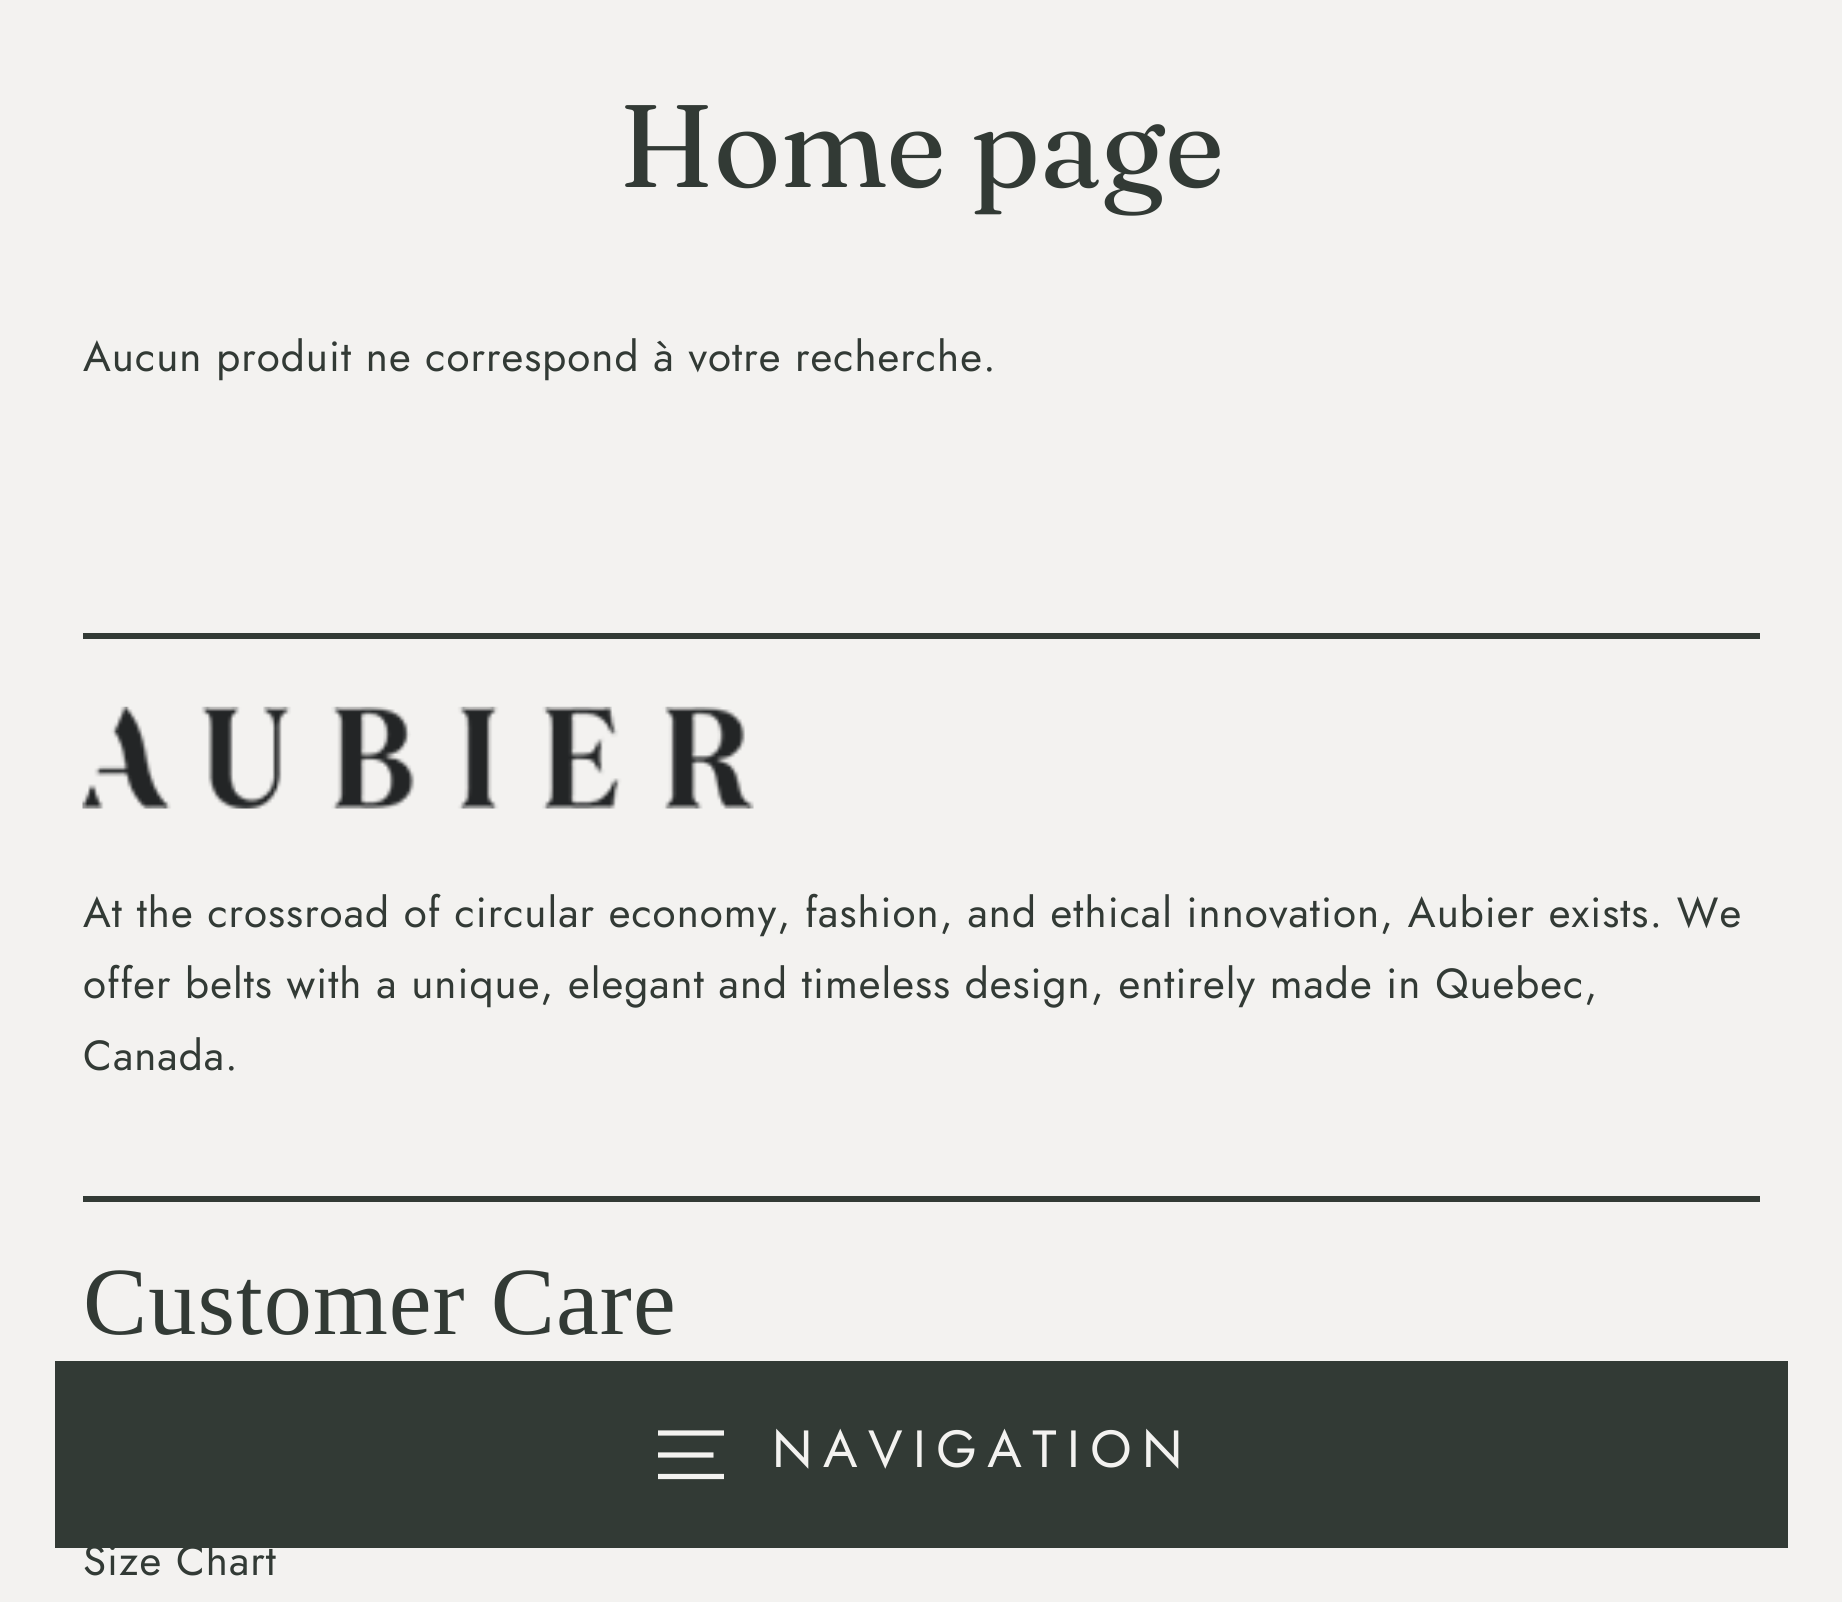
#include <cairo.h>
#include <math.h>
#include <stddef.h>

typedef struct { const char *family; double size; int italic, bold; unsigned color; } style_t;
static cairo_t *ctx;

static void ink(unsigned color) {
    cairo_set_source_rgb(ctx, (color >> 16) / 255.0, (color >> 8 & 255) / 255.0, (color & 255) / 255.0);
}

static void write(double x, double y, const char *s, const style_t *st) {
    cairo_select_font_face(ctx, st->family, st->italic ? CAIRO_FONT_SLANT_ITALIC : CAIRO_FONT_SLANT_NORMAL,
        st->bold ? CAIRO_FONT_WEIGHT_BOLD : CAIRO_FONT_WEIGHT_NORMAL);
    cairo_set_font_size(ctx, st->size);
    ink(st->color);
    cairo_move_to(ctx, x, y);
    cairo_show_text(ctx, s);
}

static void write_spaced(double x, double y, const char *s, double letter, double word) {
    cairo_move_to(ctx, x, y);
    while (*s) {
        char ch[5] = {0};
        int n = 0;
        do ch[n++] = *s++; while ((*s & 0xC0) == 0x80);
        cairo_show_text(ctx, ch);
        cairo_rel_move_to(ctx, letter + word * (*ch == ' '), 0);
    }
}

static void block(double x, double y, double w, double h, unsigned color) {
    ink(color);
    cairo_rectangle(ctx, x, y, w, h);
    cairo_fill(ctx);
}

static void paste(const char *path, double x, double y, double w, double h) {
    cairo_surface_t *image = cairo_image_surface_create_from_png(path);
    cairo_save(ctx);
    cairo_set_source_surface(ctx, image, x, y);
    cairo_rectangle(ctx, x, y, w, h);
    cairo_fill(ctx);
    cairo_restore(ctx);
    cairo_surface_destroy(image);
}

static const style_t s1 = {"Fraunces", 117, 0, 0, 0x323a35};

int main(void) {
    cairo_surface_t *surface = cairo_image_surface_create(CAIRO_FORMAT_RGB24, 1842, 1602);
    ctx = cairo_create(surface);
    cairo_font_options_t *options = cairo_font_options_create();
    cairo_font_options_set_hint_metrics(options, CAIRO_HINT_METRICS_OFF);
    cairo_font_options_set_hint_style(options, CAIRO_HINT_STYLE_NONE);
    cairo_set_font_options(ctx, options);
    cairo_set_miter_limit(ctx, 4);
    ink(0xf3f2f0);
    cairo_paint(ctx);
    write(619, 187, "Home page", &s1);
    cairo_select_font_face(ctx, "Jost", CAIRO_FONT_SLANT_NORMAL, CAIRO_FONT_WEIGHT_NORMAL);
    cairo_set_font_size(ctx, 42.1);
    write_spaced(83, 371, "Aucun produit ne correspond à votre recherche.", 1.05, 0);
    block(83, 633, 1677, 6, 0x323a35);
    paste("pic1.png", 82, 706, 672, 103);
    write_spaced(83, 927, "At the crossroad of circular economy, fashion, and ethical innovation, Aubier exists. We", 1.05, 0);
    write_spaced(83, 998, "offer belts with a unique, elegant and timeless design, entirely made in Quebec,", 1.05, 0);
    write_spaced(83, 1070, "Canada.", 1.05, 0);
    block(83, 1196, 1677, 6, 0x323a35);
    cairo_select_font_face(ctx, "Liberation Serif", CAIRO_FONT_SLANT_NORMAL, CAIRO_FONT_WEIGHT_NORMAL);
    cairo_set_font_size(ctx, 96.25);
    write_spaced(83, 1334, "Customer Care", 1.05, 0);
    cairo_select_font_face(ctx, "Jost", CAIRO_FONT_SLANT_NORMAL, CAIRO_FONT_WEIGHT_NORMAL);
    cairo_set_font_size(ctx, 42.1);
    write_spaced(83, 1575, "Size Chart", 1.05, 0);
    block(55, 1361, 1733, 187, 0x323a35);
    cairo_new_path(ctx);
    cairo_move_to(ctx, 658, 1433);
    cairo_line_to(ctx, 724, 1433);
    cairo_move_to(ctx, 658, 1455);
    cairo_line_to(ctx, 713.5, 1455);
    cairo_move_to(ctx, 658, 1476.5);
    cairo_line_to(ctx, 724, 1476.5);
    ink(0xf3f2f0);
    cairo_set_line_width(ctx, 5.2);
    cairo_stroke(ctx);
    cairo_set_font_size(ctx, 52.25);
    write_spaced(772, 1467, "NAVIGATION", 10.5, 0);
    cairo_surface_write_to_png(surface, "screenshot.png");
    cairo_font_options_destroy(options);
    cairo_destroy(ctx);
    cairo_surface_destroy(surface);
    return 0;
}
